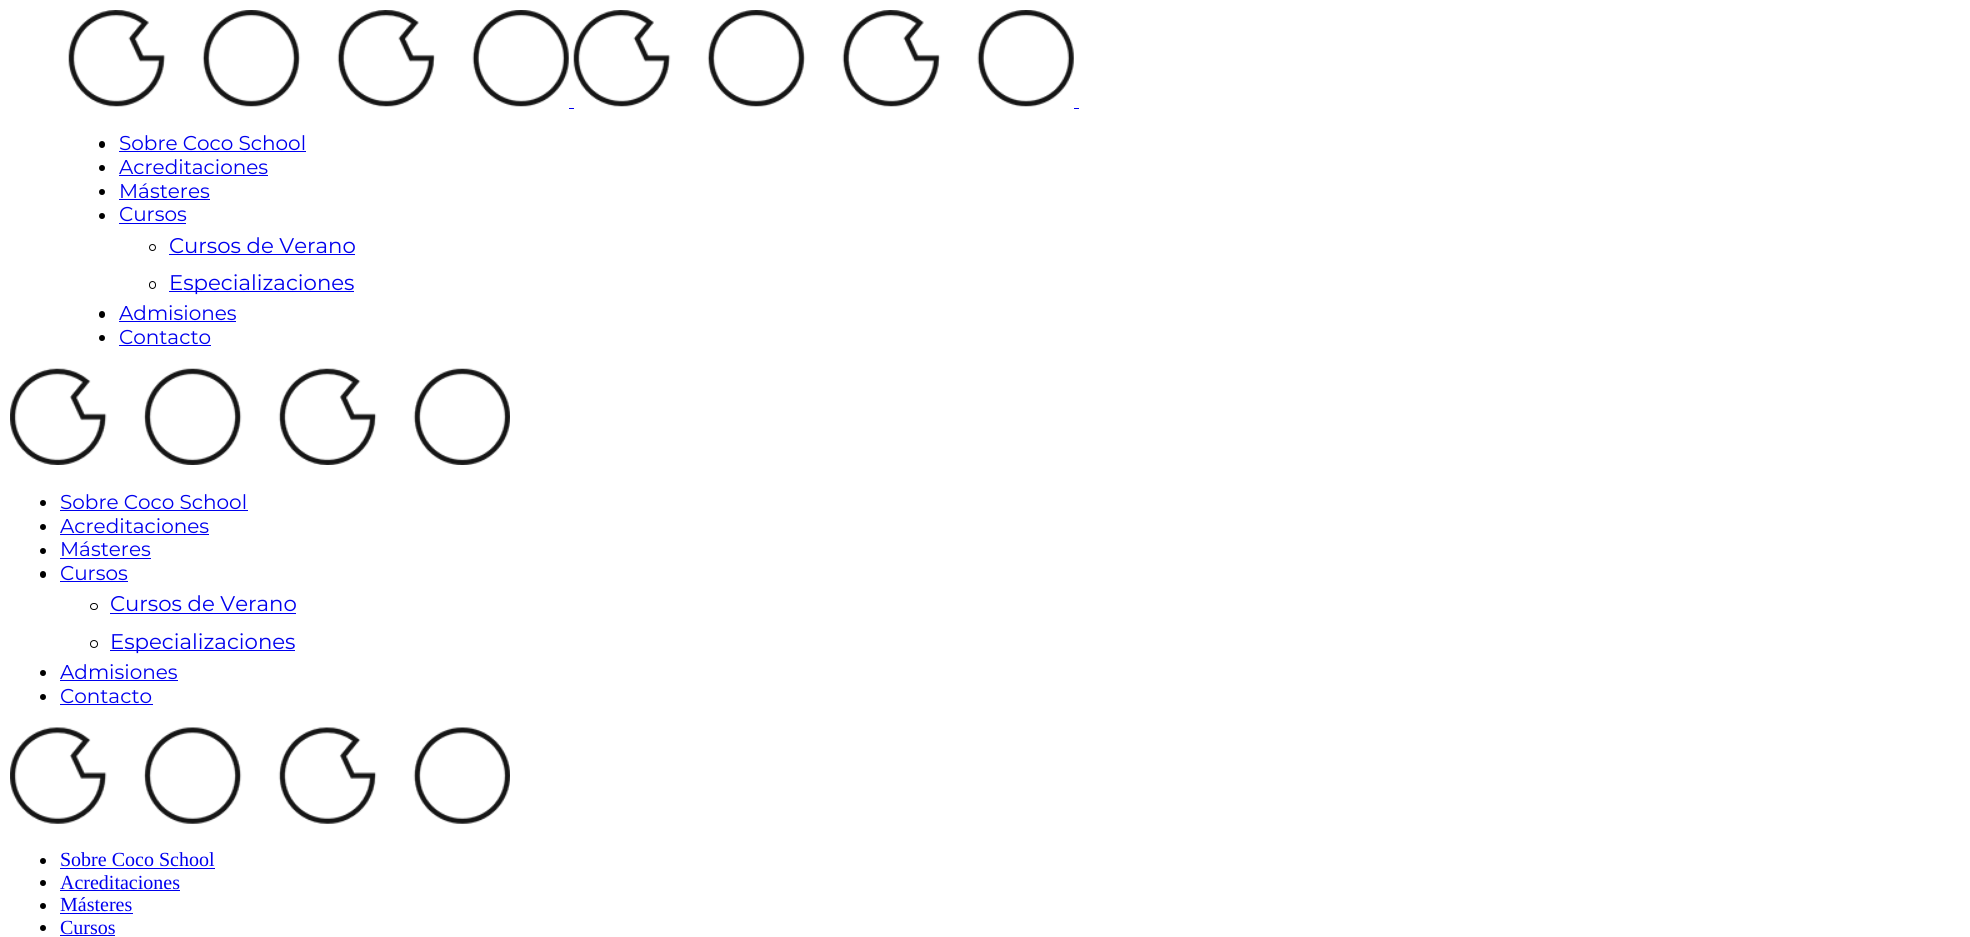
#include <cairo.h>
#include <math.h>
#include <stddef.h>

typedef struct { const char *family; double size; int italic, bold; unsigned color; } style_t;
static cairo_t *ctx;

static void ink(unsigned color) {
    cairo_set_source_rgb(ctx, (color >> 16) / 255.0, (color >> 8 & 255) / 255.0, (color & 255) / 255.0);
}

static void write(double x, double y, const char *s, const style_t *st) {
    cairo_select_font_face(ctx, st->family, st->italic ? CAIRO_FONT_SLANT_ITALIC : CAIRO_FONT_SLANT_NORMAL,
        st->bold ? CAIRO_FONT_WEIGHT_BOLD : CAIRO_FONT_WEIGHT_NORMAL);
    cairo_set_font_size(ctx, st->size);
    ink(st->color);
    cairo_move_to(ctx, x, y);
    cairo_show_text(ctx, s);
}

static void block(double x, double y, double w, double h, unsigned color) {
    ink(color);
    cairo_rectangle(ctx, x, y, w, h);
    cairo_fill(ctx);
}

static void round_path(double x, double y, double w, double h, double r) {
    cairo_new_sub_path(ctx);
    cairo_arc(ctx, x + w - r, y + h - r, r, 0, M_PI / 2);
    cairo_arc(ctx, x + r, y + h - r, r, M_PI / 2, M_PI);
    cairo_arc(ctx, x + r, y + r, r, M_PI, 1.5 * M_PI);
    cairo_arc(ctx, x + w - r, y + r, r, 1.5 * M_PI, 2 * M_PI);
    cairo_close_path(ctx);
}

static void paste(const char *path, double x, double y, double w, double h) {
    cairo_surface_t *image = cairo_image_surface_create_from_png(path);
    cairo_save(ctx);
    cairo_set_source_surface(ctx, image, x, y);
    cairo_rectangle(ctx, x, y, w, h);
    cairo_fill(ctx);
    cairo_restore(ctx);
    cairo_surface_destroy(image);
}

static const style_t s1 = {"Montserrat", 20, 0, 0, 0x0000ee};
static const style_t s2 = {"Montserrat", 21.25, 0, 0, 0x0000ee};
static const style_t s3 = {"Liberation Serif", 20, 0, 0, 0x0000ee};

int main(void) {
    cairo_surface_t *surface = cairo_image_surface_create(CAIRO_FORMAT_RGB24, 1970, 937);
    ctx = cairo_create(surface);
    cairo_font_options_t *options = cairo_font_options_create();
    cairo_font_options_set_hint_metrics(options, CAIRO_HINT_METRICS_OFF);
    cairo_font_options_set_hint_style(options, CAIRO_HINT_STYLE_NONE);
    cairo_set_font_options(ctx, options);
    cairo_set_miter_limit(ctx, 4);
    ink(0xffffff);
    cairo_paint(ctx);
    paste("pic1.png", 68, 10, 501, 97);
    paste("pic2.png", 573, 10, 501, 97);
    block(569, 108, 5, 1, 0x0000ee);
    block(1074, 108, 5, 1, 0x0000ee);
    ink(0x000000);
    round_path(99, 141, 6, 7, 3);
    cairo_fill(ctx);
    write(119, 150, "Sobre Coco School", &s1);
    block(119, 151, 187, 1, 0x0000ee);
    ink(0x000000);
    cairo_new_path(ctx);
    cairo_arc(ctx, 102, 168, 3, 0, 2 * M_PI);
    cairo_fill(ctx);
    write(119, 174, "Acreditaciones", &s1);
    block(119, 175, 149, 1, 0x0000ee);
    ink(0x000000);
    cairo_new_path(ctx);
    cairo_arc(ctx, 102, 192, 3, 0, 2 * M_PI);
    cairo_fill(ctx);
    write(119, 198, "Másteres", &s1);
    block(119, 199, 91, 1, 0x0000ee);
    ink(0x000000);
    cairo_new_path(ctx);
    cairo_arc(ctx, 102, 216, 3, 0, 2 * M_PI);
    cairo_fill(ctx);
    write(119, 221, "Cursos", &s1);
    block(119, 223, 67, 1, 0x0000ee);
    cairo_new_path(ctx);
    cairo_arc(ctx, 152.5, 247.5, 3, 0, 2 * M_PI);
    ink(0x000000);
    cairo_set_line_width(ctx, 1);
    cairo_stroke(ctx);
    write(169, 253, "Cursos de Verano", &s2);
    block(169, 254, 186, 1, 0x0000ee);
    round_path(149.5, 281.5, 6, 7, 3);
    ink(0x000000);
    cairo_stroke(ctx);
    block(169, 291, 185, 1, 0x0000ee);
    write(169, 290, "Especializaciones", &s2);
    ink(0x000000);
    round_path(99, 311, 6, 7, 3);
    cairo_fill(ctx);
    write(119, 320, "Admisiones", &s1);
    block(119, 321, 117, 1, 0x0000ee);
    ink(0x000000);
    cairo_new_path(ctx);
    cairo_arc(ctx, 102, 338, 3, 0, 2 * M_PI);
    cairo_fill(ctx);
    write(119, 344, "Contacto", &s1);
    block(119, 345, 92, 1, 0x0000ee);
    paste("pic3.png", 10, 368, 500, 97);
    ink(0x000000);
    cairo_arc(ctx, 43, 503, 3, 0, 2 * M_PI);
    cairo_fill(ctx);
    write(60, 509, "Sobre Coco School", &s1);
    block(60, 510, 188, 1, 0x0000ee);
    ink(0x000000);
    cairo_new_path(ctx);
    cairo_arc(ctx, 43, 527, 3, 0, 2 * M_PI);
    cairo_fill(ctx);
    write(60, 533, "Acreditaciones", &s1);
    block(60, 534, 149, 1, 0x0000ee);
    ink(0x000000);
    cairo_new_path(ctx);
    cairo_arc(ctx, 43, 551, 3, 0, 2 * M_PI);
    cairo_fill(ctx);
    write(60, 556, "Másteres", &s1);
    block(60, 558, 91, 1, 0x0000ee);
    ink(0x000000);
    round_path(40, 571, 6, 7, 3);
    cairo_fill(ctx);
    write(60, 580, "Cursos", &s1);
    block(60, 581, 68, 1, 0x0000ee);
    round_path(90.5, 603.5, 7, 6, 3);
    ink(0x000000);
    cairo_stroke(ctx);
    write(110, 611, "Cursos de Verano", &s2);
    block(110, 613, 186, 1, 0x0000ee);
    cairo_new_path(ctx);
    cairo_arc(ctx, 94, 644, 3.5, 0, 2 * M_PI);
    ink(0x000000);
    cairo_stroke(ctx);
    block(110, 650, 185, 1, 0x0000ee);
    write(110, 649, "Especializaciones", &s2);
    ink(0x000000);
    cairo_new_path(ctx);
    cairo_arc(ctx, 43, 673, 3, 0, 2 * M_PI);
    cairo_fill(ctx);
    write(60, 679, "Admisiones", &s1);
    block(60, 680, 118, 1, 0x0000ee);
    ink(0x000000);
    cairo_new_path(ctx);
    cairo_arc(ctx, 43, 697, 3, 0, 2 * M_PI);
    cairo_fill(ctx);
    write(60, 703, "Contacto", &s1);
    block(60, 704, 93, 1, 0x0000ee);
    paste("pic4.png", 10, 727, 500, 97);
    ink(0x000000);
    cairo_arc(ctx, 43, 861, 3, 0, 2 * M_PI);
    cairo_fill(ctx);
    write(60, 866, "Sobre Coco School", &s3);
    block(60, 868, 155, 1, 0x0000ee);
    ink(0x000000);
    cairo_new_path(ctx);
    cairo_arc(ctx, 43, 883, 3, 0, 2 * M_PI);
    cairo_fill(ctx);
    write(60, 889, "Acreditaciones", &s3);
    block(60, 890, 120, 1, 0x0000ee);
    ink(0x000000);
    cairo_new_path(ctx);
    cairo_arc(ctx, 43, 906, 3, 0, 2 * M_PI);
    cairo_fill(ctx);
    write(60, 911, "Másteres", &s3);
    block(60, 913, 73, 1, 0x0000ee);
    ink(0x000000);
    cairo_new_path(ctx);
    cairo_arc(ctx, 43, 928, 3, 0, 2 * M_PI);
    cairo_fill(ctx);
    write(60, 934, "Cursos", &s3);
    block(60, 935, 55, 1, 0x0000ee);
    cairo_surface_write_to_png(surface, "screenshot.png");
    cairo_font_options_destroy(options);
    cairo_destroy(ctx);
    cairo_surface_destroy(surface);
    return 0;
}
